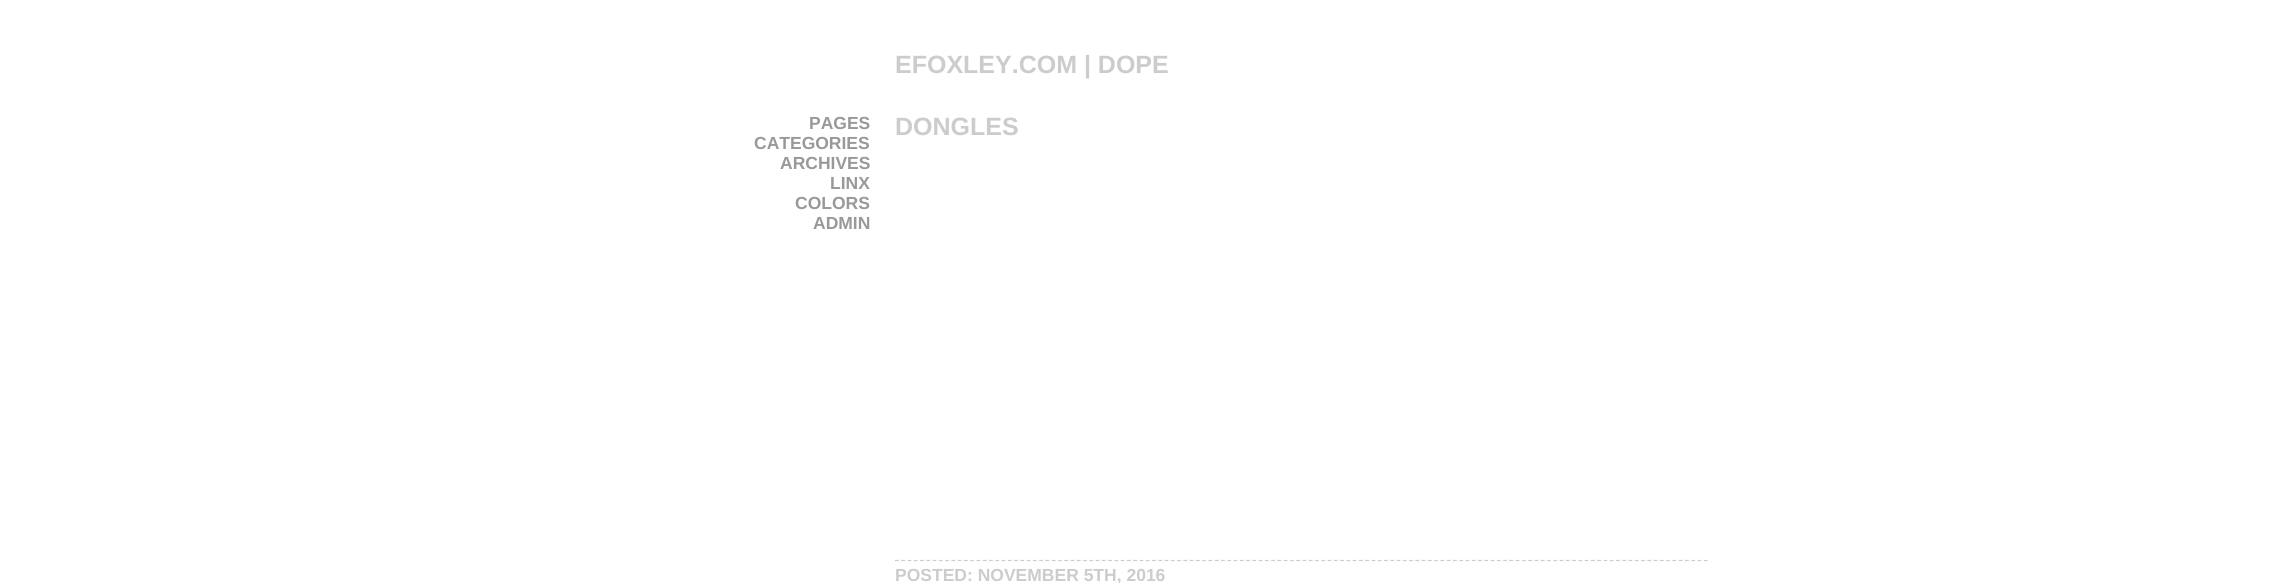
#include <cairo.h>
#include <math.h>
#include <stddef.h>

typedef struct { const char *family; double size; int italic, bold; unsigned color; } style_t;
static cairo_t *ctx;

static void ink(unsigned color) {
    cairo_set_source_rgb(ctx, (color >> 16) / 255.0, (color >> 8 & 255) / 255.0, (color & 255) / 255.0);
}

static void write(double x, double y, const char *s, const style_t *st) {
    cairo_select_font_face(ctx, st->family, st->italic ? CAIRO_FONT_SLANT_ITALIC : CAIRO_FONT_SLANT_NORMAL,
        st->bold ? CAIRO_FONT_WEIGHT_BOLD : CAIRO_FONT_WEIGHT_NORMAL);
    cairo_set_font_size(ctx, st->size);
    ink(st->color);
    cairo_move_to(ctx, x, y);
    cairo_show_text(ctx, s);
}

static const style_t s1 = {"Liberation Sans", 25, 0, 1, 0xcccccc};
static const style_t s2 = {"Liberation Sans", 17.5, 0, 1, 0x999999};
static const style_t s3 = {"Liberation Sans", 17.5, 0, 1, 0xcccccc};

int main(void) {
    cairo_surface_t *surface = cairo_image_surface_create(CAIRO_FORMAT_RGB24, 2290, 583);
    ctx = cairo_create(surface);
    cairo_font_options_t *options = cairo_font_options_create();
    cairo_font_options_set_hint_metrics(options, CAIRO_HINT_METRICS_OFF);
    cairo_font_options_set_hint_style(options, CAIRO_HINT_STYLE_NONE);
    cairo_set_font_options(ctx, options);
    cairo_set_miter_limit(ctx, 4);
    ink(0xffffff);
    cairo_paint(ctx);
    write(895, 73, "EFOXLEY.COM | DOPE", &s1);
    write(809, 129, "PAGES", &s2);
    write(754, 149, "CATEGORIES", &s2);
    write(780, 169, "ARCHIVES", &s2);
    write(830, 189, "LINX", &s2);
    write(795, 209, "COLORS", &s2);
    write(813, 229, "ADMIN", &s2);
    write(895, 135, "DONGLES", &s1);
    cairo_new_path(ctx);
    cairo_move_to(ctx, 895, 560.5);
    cairo_line_to(ctx, 1707.5, 560.5);
    cairo_set_line_width(ctx, 1.2);
    cairo_set_dash(ctx, (double[]){3.75, 2.52}, 2, 0);
    cairo_stroke(ctx);
    write(895, 581, "POSTED: NOVEMBER 5TH, 2016", &s3);
    cairo_surface_write_to_png(surface, "screenshot.png");
    cairo_font_options_destroy(options);
    cairo_destroy(ctx);
    cairo_surface_destroy(surface);
    return 0;
}
